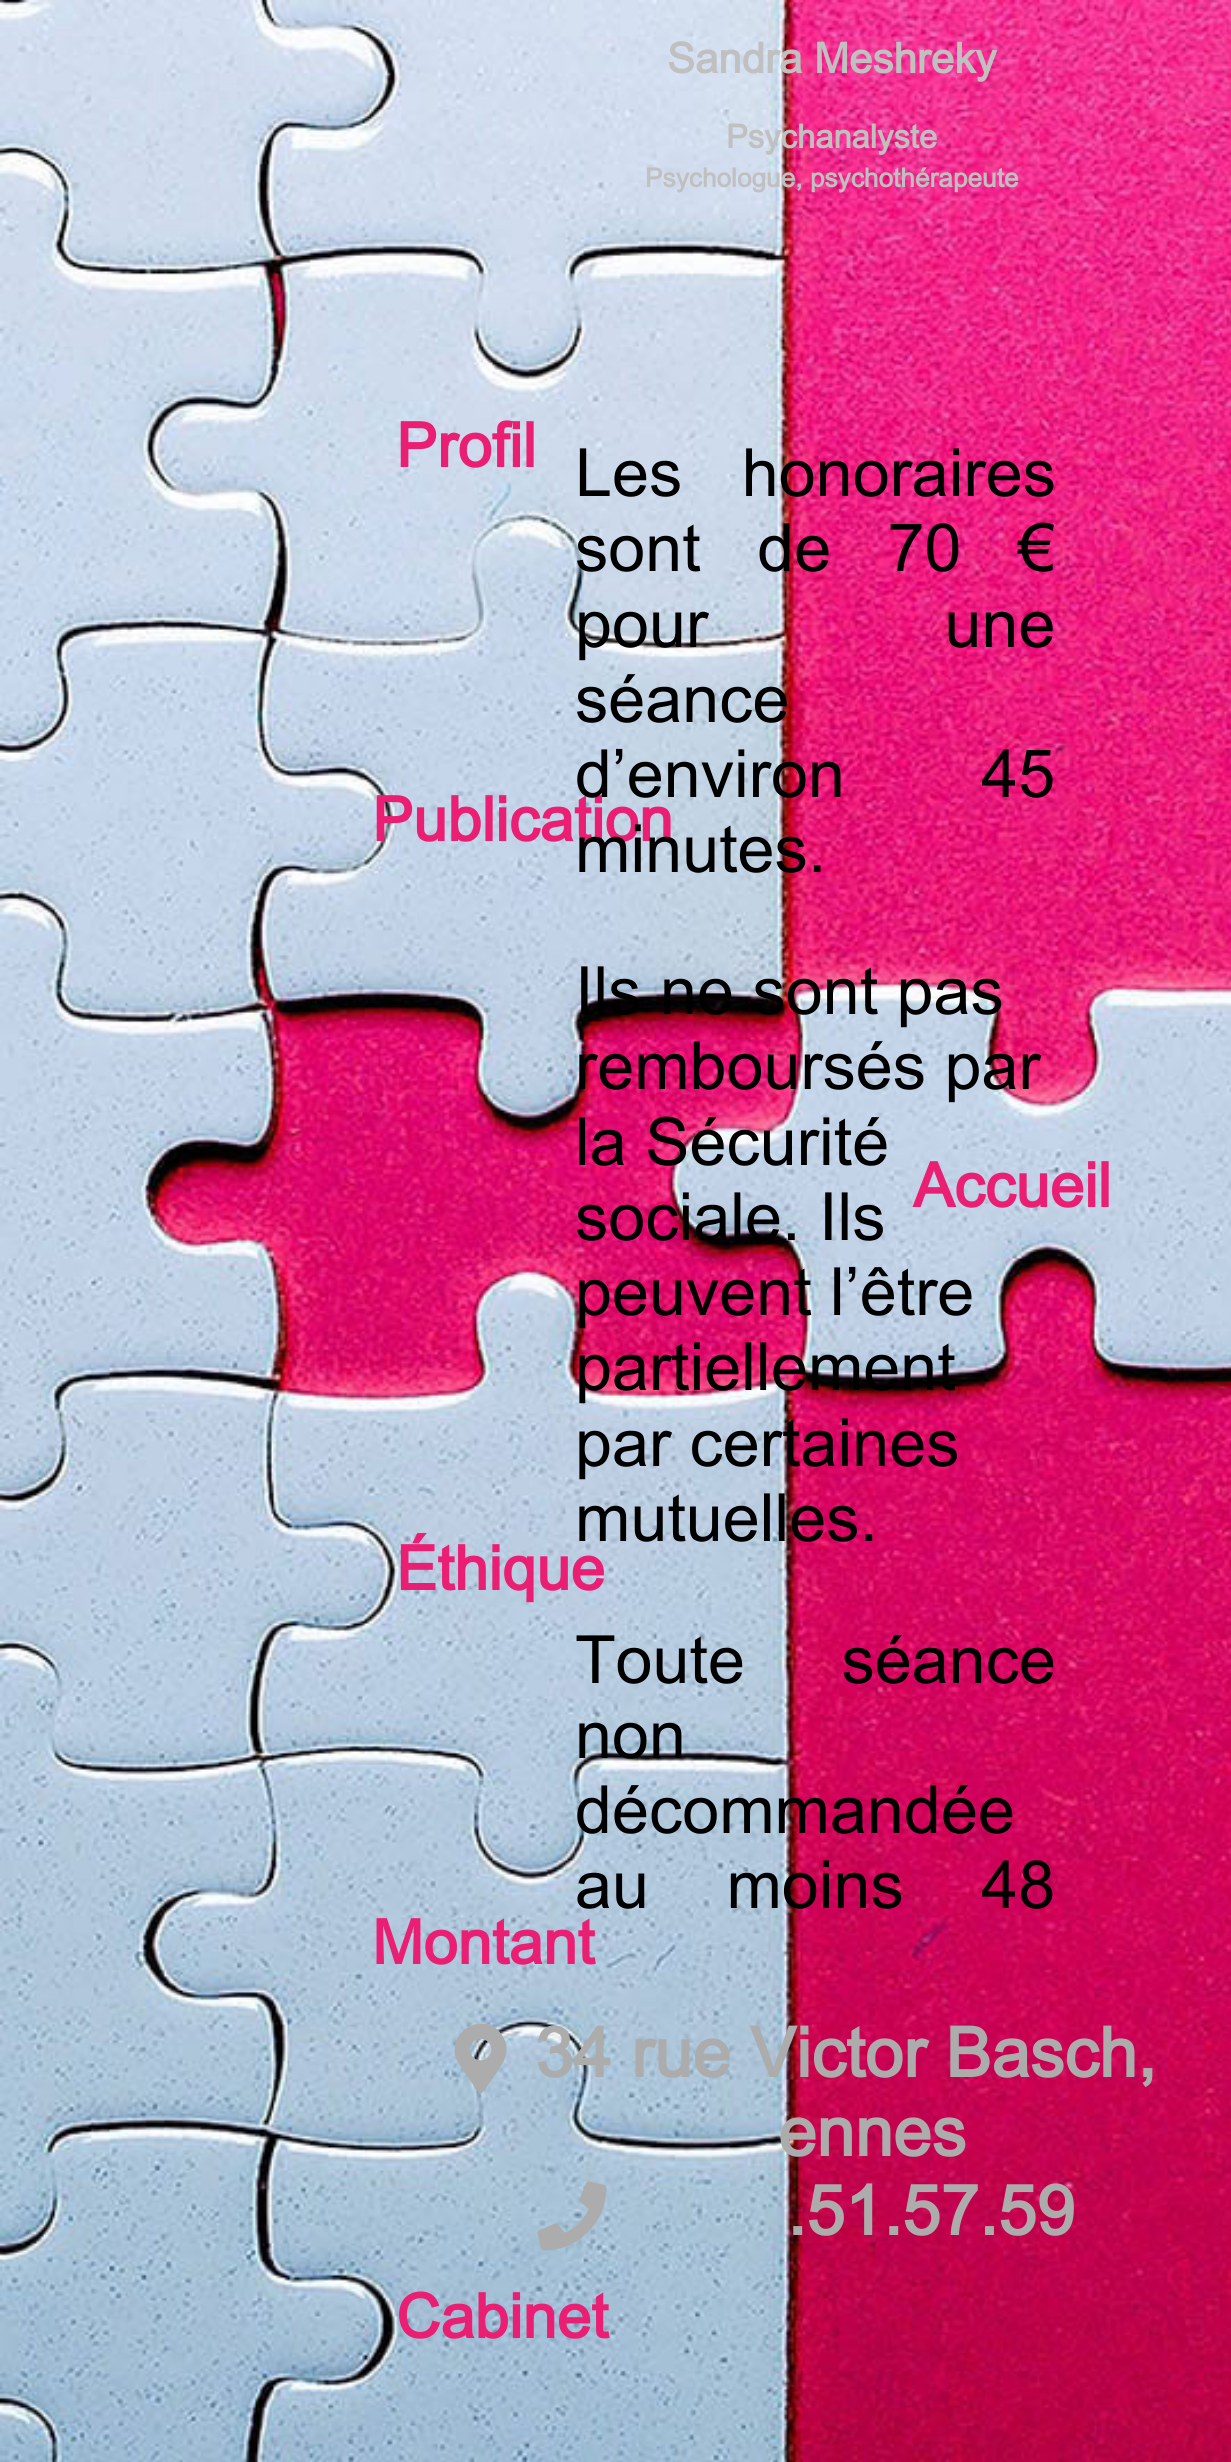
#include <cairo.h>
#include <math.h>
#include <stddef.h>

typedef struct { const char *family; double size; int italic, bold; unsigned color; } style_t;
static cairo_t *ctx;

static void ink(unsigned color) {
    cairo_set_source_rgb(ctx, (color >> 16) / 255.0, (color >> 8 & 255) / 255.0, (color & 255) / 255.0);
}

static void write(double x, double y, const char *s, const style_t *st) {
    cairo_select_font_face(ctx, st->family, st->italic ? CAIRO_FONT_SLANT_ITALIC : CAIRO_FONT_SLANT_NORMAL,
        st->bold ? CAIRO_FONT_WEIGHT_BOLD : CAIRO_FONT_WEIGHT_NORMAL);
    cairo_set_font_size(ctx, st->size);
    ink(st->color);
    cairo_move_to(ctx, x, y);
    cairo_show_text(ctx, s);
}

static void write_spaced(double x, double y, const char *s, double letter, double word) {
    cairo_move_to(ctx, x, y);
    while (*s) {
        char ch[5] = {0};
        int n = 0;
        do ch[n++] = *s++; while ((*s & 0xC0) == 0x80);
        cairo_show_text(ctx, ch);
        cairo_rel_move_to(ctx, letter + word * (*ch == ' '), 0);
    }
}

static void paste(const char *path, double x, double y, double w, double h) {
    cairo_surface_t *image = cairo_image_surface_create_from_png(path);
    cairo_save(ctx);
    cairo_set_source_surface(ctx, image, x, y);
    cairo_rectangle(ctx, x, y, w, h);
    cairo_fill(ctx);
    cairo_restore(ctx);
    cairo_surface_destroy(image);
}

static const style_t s1 = {"Arial", 42, 0, 1, 0xc0c0c0};
static const style_t s2 = {"Arial", 32.75, 0, 1, 0xc0c0c0};
static const style_t s3 = {"Arial", 26.25, 0, 1, 0xc0c0c0};
static const style_t s4 = {"Arial", 61.5, 0, 1, 0xea1e73};
static const style_t s5 = {"Arial", 66.5, 0, 0, 0x000000};
static const style_t s6 = {"Arial", 69, 0, 1, 0xacacac};

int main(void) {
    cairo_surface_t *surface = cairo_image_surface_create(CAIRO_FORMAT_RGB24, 1231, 2462);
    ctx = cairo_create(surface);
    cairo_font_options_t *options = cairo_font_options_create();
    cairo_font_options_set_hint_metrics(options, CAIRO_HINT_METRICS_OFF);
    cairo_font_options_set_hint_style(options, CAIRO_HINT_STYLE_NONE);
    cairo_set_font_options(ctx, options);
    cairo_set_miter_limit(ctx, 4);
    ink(0xffffff);
    cairo_paint(ctx);
    paste("pic1.png", 0, 0, 1231, 2462);
    write(667, 73, "Sandra Meshreky", &s1);
    write(726, 148, "Psychanalyste", &s2);
    write(645, 187, "Psychologue, psychothérapeute", &s3);
    write(396, 467, "Profil", &s4);
    write(372, 841, "Publication", &s4);
    write(913, 1207, "Accueil", &s4);
    write(396, 1590, "Éthique", &s4);
    write(372, 1964, "Montant", &s4);
    write(396, 2338, "Cabinet", &s4);
    cairo_select_font_face(ctx, "Arial", CAIRO_FONT_SLANT_NORMAL, CAIRO_FONT_WEIGHT_NORMAL);
    cairo_set_font_size(ctx, 66.5);
    ink(0x000000);
    write_spaced(575, 496, "Les honoraires", 0, 41);
    write_spaced(575, 571, "sont de 70 €", 0, 38);
    write_spaced(575, 647, "pour une", 0, 218);
    write(575, 722, "séance", &s5);
    write_spaced(575, 797, "d’environ 45", 0, 118);
    write(575, 872, "minutes.", &s5);
    write(575, 1014, "Ils ne sont pas", &s5);
    write(575, 1089, "remboursés par", &s5);
    write(575, 1165, "la Sécurité", &s5);
    write(575, 1240, "sociale. Ils", &s5);
    write(575, 1315, "peuvent l’être", &s5);
    write(575, 1390, "partiellement", &s5);
    write(575, 1466, "par certaines", &s5);
    write(575, 1541, "mutuelles.", &s5);
    write_spaced(575, 1683, "Toute séance", 0, 78);
    write(575, 1758, "non", &s5);
    write(575, 1833, "décommandée", &s5);
    write_spaced(575, 1908, "au moins 48", 0, 59);
    ink(0xacacac);
    cairo_new_path(ctx);
    cairo_move_to(ctx, 478, 2092);
    cairo_line_to(ctx, 467, 2076);
    cairo_curve_to(ctx, 463, 2069, 457, 2063, 455, 2055);
    cairo_curve_to(ctx, 450, 2027, 487, 2012, 502, 2035);
    cairo_curve_to(ctx, 514, 2053, 500, 2067, 491, 2081);
    cairo_line_to(ctx, 482, 2093);
    cairo_curve_to(ctx, 481, 2093, 479, 2093, 478, 2092);
    cairo_close_path(ctx);
    cairo_move_to(ctx, 473, 2057);
    cairo_curve_to(ctx, 483, 2067, 498, 2052, 488, 2042);
    cairo_curve_to(ctx, 478, 2032, 463, 2047, 473, 2057);
    cairo_close_path(ctx);
    cairo_fill(ctx);
    write(535, 2077, "34 rue Victor Basch,", &s6);
    write(778, 2156, "ennes", &s6);
    paste("pic2.png", 537, 2181, 70, 70);
    write(787, 2235, ".51.57.59", &s6);
    cairo_surface_write_to_png(surface, "screenshot.png");
    cairo_font_options_destroy(options);
    cairo_destroy(ctx);
    cairo_surface_destroy(surface);
    return 0;
}
